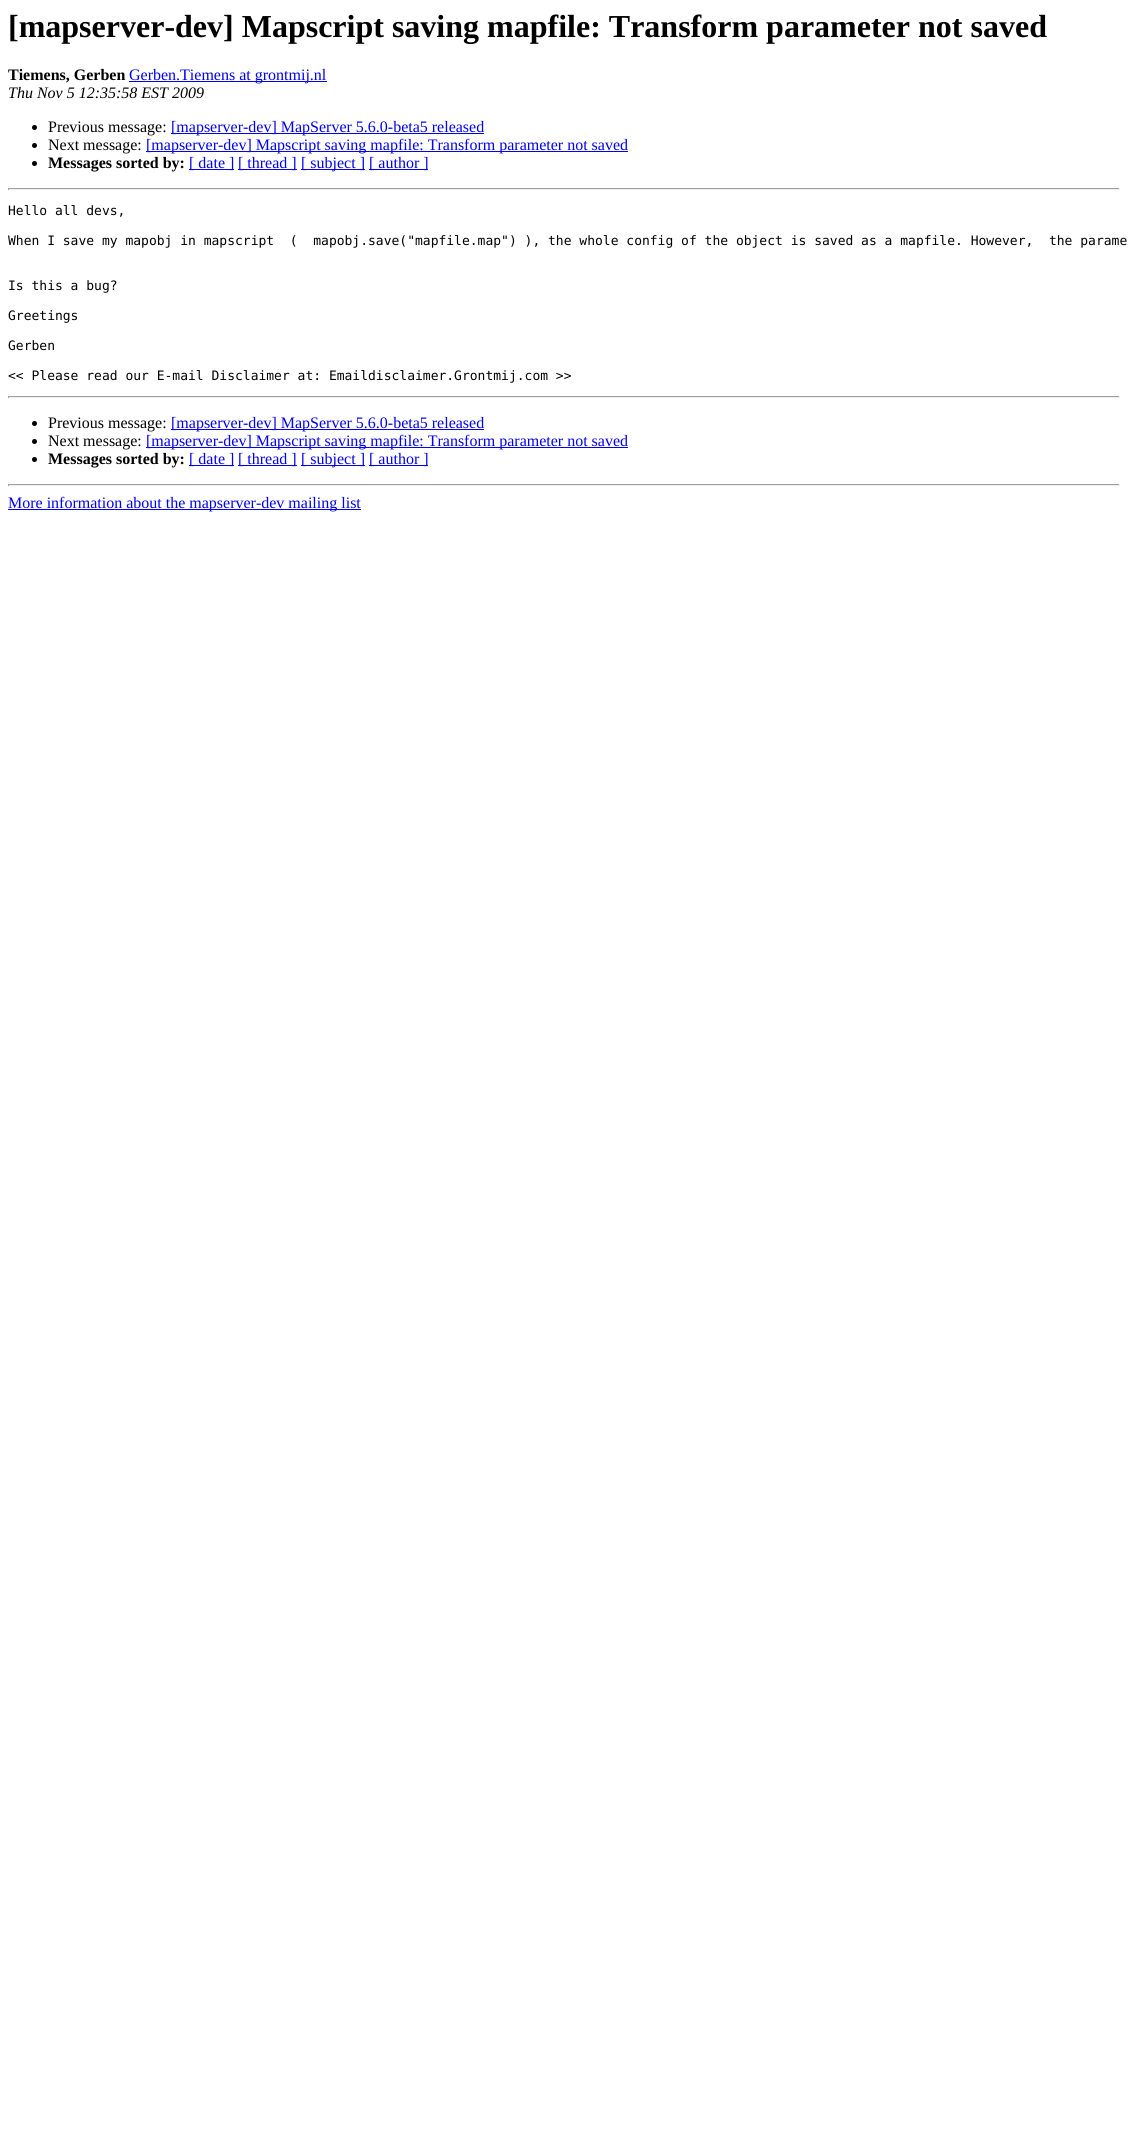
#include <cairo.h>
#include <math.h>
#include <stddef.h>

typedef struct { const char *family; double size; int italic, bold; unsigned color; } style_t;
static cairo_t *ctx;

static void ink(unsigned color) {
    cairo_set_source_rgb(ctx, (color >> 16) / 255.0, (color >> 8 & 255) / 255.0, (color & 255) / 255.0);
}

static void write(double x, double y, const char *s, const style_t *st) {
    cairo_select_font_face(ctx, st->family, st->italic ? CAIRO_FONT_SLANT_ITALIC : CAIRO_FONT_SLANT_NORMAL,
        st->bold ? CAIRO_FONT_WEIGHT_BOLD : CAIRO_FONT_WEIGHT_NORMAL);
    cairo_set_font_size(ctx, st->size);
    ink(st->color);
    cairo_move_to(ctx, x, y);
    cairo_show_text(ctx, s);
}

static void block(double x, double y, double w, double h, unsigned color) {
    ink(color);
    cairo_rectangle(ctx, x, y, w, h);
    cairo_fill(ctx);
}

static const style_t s1 = {"Liberation Serif", 32, 0, 1, 0x000000};
static const style_t s2 = {"Liberation Serif", 16, 0, 1, 0x000000};
static const style_t s3 = {"Liberation Serif", 16, 0, 0, 0x0000ee};
static const style_t s4 = {"Liberation Serif", 16, 1, 0, 0x000000};
static const style_t s5 = {"Liberation Serif", 16, 0, 0, 0x000000};
static const style_t s6 = {"DejaVu Sans Mono", 13, 0, 0, 0x000000};

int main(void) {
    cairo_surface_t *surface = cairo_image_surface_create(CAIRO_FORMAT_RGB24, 1128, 2134);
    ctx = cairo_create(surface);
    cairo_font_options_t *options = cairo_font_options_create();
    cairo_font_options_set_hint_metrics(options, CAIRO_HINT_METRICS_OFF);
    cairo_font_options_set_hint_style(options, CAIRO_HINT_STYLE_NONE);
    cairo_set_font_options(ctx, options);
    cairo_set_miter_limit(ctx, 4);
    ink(0xffffff);
    cairo_paint(ctx);
    write(8, 37, "[mapserver-dev] Mapscript saving mapfile: Transform parameter not saved", &s1);
    write(8, 80, "Tiemens, Gerben", &s2);
    block(129, 81, 198, 1, 0x0000ee);
    write(129, 80, "Gerben.Tiemens at grontmij.nl", &s3);
    write(8, 98, "Thu Nov 5 12:35:58 EST 2009", &s4);
    cairo_new_path(ctx);
    cairo_arc(ctx, 34.5, 127.5, 2.5, 0, 2 * M_PI);
    cairo_fill(ctx);
    write(48, 132, "Previous message:", &s5);
    block(171, 133, 313, 1, 0x0000ee);
    write(171, 132, "[mapserver-dev] MapServer 5.6.0-beta5 released", &s3);
    ink(0x000000);
    cairo_new_path(ctx);
    cairo_arc(ctx, 34.5, 145.5, 2.5, 0, 2 * M_PI);
    cairo_fill(ctx);
    write(48, 150, "Next message:", &s5);
    block(146, 151, 482, 1, 0x0000ee);
    write(146, 150, "[mapserver-dev] Mapscript saving mapfile: Transform parameter not saved", &s3);
    ink(0x000000);
    cairo_new_path(ctx);
    cairo_arc(ctx, 34.5, 163.5, 2.5, 0, 2 * M_PI);
    cairo_fill(ctx);
    write(48, 168, "Messages sorted by:", &s2);
    block(189, 169, 45, 1, 0x0000ee);
    write(189, 168, "[ date ]", &s3);
    block(238, 169, 59, 1, 0x0000ee);
    write(238, 168, "[ thread ]", &s3);
    block(301, 169, 64, 1, 0x0000ee);
    write(301, 168, "[ subject ]", &s3);
    block(369, 169, 59, 1, 0x0000ee);
    write(369, 168, "[ author ]", &s3);
    block(8, 188, 1112, 1, 0x9f9f9f);
    block(1119, 188, 1, 2, 0xeeeeee);
    block(8, 189, 1112, 1, 0xeeeeee);
    block(8, 188, 1, 2, 0x9f9f9f);
    write(8, 215, "Hello all devs,", &s6);
    write(8, 245, "When I save my mapobj in mapscript  (  mapobj.save(\"mapfile.map\") ), the whole config of the object is saved as a mapfile. However,  the parame", &s6);
    write(8, 290, "Is this a bug?", &s6);
    write(8, 320, "Greetings", &s6);
    write(8, 350, "Gerben", &s6);
    write(8, 380, "<< Please read our E-mail Disclaimer at: Emaildisclaimer.Grontmij.com >>", &s6);
    block(8, 396, 1112, 1, 0x9f9f9f);
    block(1119, 396, 1, 2, 0xeeeeee);
    block(8, 397, 1112, 1, 0xeeeeee);
    block(8, 396, 1, 2, 0x9f9f9f);
    ink(0x000000);
    cairo_new_path(ctx);
    cairo_arc(ctx, 34.5, 423.5, 2.5, 0, 2 * M_PI);
    cairo_fill(ctx);
    write(48, 428, "Previous message:", &s5);
    block(171, 429, 313, 1, 0x0000ee);
    write(171, 428, "[mapserver-dev] MapServer 5.6.0-beta5 released", &s3);
    ink(0x000000);
    cairo_new_path(ctx);
    cairo_arc(ctx, 34.5, 441.5, 2.5, 0, 2 * M_PI);
    cairo_fill(ctx);
    write(48, 446, "Next message:", &s5);
    block(146, 447, 482, 1, 0x0000ee);
    write(146, 446, "[mapserver-dev] Mapscript saving mapfile: Transform parameter not saved", &s3);
    ink(0x000000);
    cairo_new_path(ctx);
    cairo_arc(ctx, 34.5, 459.5, 2.5, 0, 2 * M_PI);
    cairo_fill(ctx);
    write(48, 464, "Messages sorted by:", &s2);
    block(189, 465, 45, 1, 0x0000ee);
    write(189, 464, "[ date ]", &s3);
    block(238, 465, 59, 1, 0x0000ee);
    write(238, 464, "[ thread ]", &s3);
    block(301, 465, 64, 1, 0x0000ee);
    write(301, 464, "[ subject ]", &s3);
    block(369, 465, 59, 1, 0x0000ee);
    write(369, 464, "[ author ]", &s3);
    block(8, 484, 1112, 1, 0x9f9f9f);
    block(1119, 484, 1, 2, 0xeeeeee);
    block(8, 485, 1112, 1, 0xeeeeee);
    block(8, 484, 1, 2, 0x9f9f9f);
    block(8, 509, 353, 1, 0x0000ee);
    write(8, 508, "More information about the mapserver-dev mailing list", &s3);
    cairo_surface_write_to_png(surface, "screenshot.png");
    cairo_font_options_destroy(options);
    cairo_destroy(ctx);
    cairo_surface_destroy(surface);
    return 0;
}
